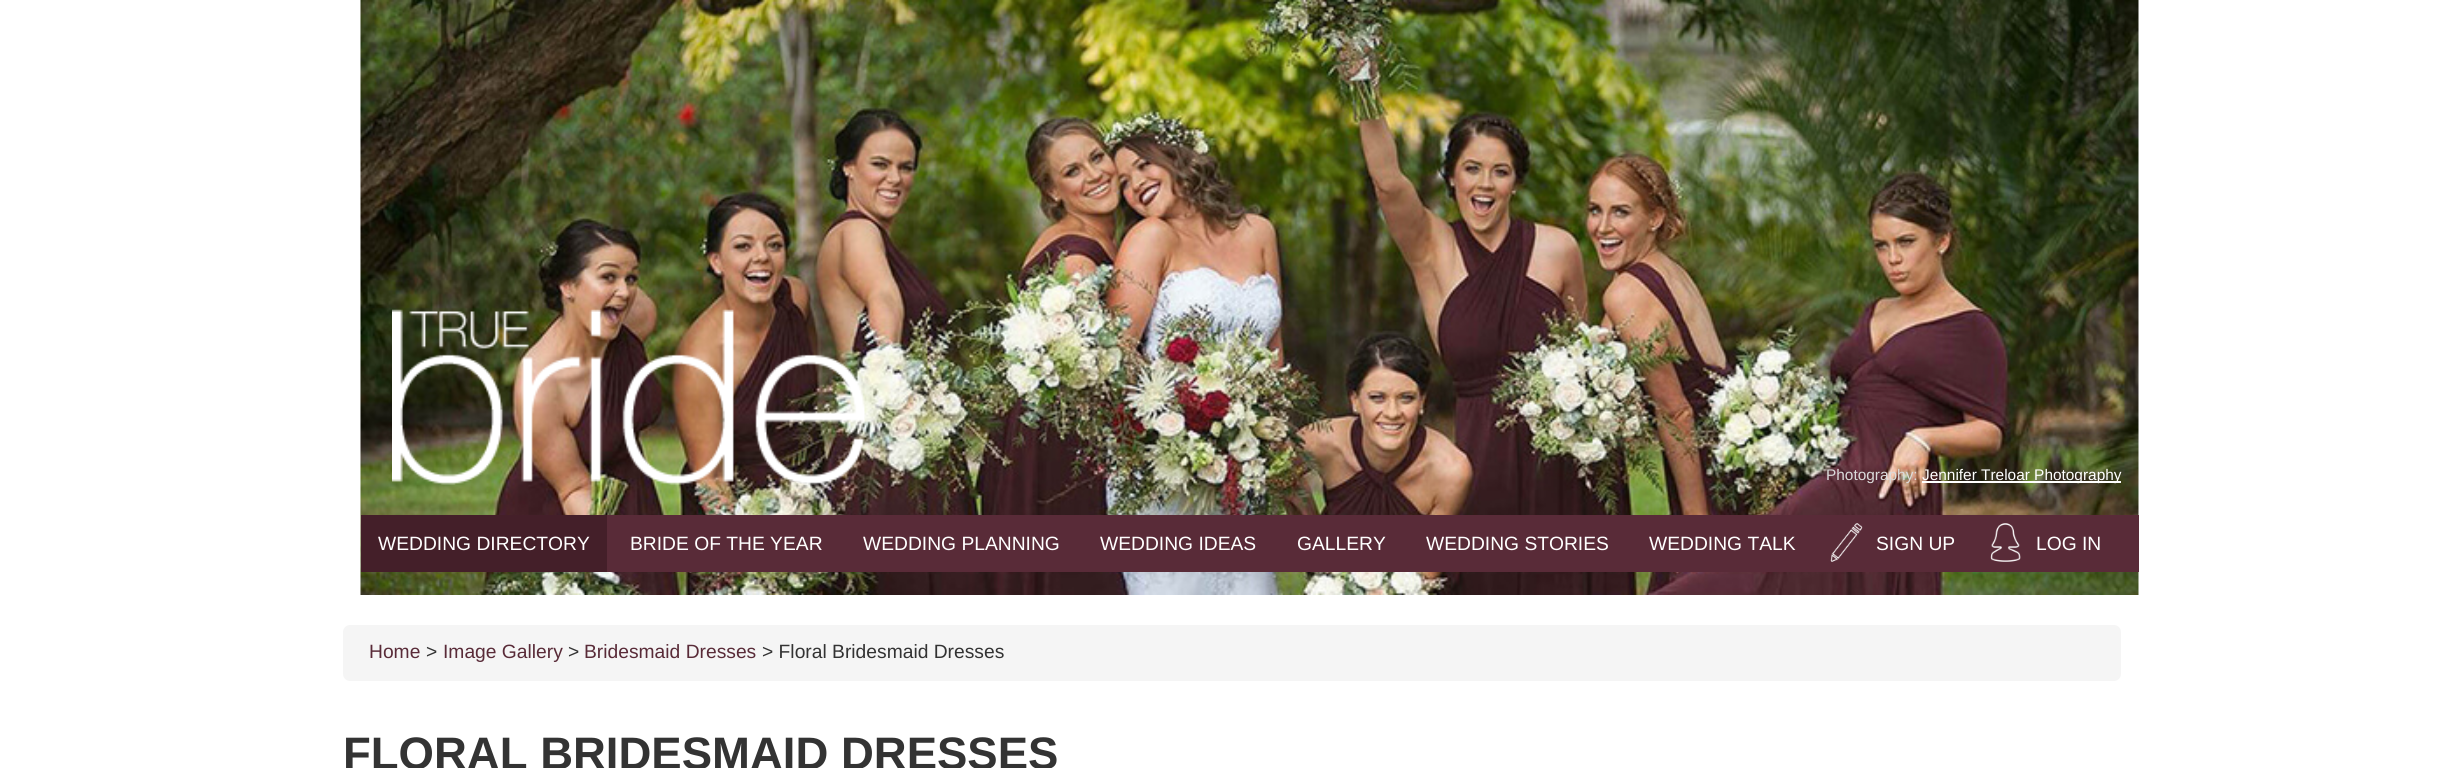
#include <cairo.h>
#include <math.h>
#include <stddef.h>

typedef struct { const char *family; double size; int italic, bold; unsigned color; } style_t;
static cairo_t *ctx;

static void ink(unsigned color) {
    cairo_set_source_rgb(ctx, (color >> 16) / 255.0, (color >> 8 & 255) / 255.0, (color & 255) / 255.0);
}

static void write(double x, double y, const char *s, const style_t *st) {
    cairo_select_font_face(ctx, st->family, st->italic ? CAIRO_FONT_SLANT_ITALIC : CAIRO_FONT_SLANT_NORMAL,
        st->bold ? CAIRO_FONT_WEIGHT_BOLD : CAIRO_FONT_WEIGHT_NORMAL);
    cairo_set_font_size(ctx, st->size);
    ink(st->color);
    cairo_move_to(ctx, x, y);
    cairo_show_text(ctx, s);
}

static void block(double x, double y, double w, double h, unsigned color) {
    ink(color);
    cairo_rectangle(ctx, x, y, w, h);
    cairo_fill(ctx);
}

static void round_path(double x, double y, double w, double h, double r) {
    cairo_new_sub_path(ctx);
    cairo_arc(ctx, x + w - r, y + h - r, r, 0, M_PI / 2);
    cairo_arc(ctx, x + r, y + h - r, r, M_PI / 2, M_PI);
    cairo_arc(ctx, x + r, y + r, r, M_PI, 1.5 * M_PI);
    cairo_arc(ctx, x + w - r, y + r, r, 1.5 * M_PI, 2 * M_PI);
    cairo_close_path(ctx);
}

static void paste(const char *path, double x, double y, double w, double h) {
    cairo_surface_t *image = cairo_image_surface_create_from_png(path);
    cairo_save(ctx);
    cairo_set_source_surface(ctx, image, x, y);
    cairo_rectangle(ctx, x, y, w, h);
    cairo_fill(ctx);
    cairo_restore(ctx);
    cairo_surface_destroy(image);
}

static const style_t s1 = {"Liberation Sans", 15.4, 0, 0, 0xdbdbdb};
static const style_t s2 = {"Liberation Sans", 15.4, 0, 0, 0xffffff};
static const style_t s3 = {"Liberation Sans", 19.25, 0, 0, 0xffffff};
static const style_t s4 = {"Liberation Sans", 19.25, 0, 0, 0x592b38};
static const style_t s5 = {"Liberation Sans", 19.25, 0, 0, 0x333333};
static const style_t s6 = {"Liberation Sans", 45.5, 0, 1, 0x333333};

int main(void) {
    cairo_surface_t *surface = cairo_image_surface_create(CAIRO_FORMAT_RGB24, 2463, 768);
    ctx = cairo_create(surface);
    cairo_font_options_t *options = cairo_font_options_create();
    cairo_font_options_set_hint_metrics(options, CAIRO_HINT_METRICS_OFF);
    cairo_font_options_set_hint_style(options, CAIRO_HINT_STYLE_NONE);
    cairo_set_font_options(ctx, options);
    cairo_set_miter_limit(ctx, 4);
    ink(0xffffff);
    cairo_paint(ctx);
    paste("pic2.png", 360, 0, 1779, 595);
    paste("pic1.png", 392, 309, 473, 176);
    write(1826, 480, "Photography:", &s1);
    block(1922, 481, 199, 2, 0xffffff);
    write(1922, 480, "Jennifer Treloar Photography", &s2);
    block(607, 515, 1532, 57, 0x592b38);
    block(361, 515, 246, 57, 0x441f29);
    write(378, 550, "WEDDING DIRECTORY", &s3);
    write(630, 550, "BRIDE OF THE YEAR", &s3);
    write(863, 550, "WEDDING PLANNING", &s3);
    write(1100, 550, "WEDDING IDEAS", &s3);
    write(1297, 550, "GALLERY", &s3);
    write(1426, 550, "WEDDING STORIES", &s3);
    write(1649, 550, "WEDDING TALK", &s3);
    paste("pic3.png", 1830, 523, 33, 39);
    write(1876, 550, "SIGN UP", &s3);
    paste("pic4.png", 1990, 523, 31, 39);
    write(2036, 550, "LOG IN", &s3);
    ink(0xf5f5f5);
    round_path(343, 625, 1778, 56, 7);
    cairo_fill(ctx);
    write(369, 658, "Home", &s4);
    write(426, 658, ">", &s5);
    write(443, 658, "Image Gallery", &s4);
    write(568, 658, ">", &s5);
    write(584, 658, "Bridesmaid Dresses", &s4);
    write(762, 658, "> Floral Bridesmaid Dresses", &s5);
    write(343, 769, "FLORAL BRIDESMAID DRESSES", &s6);
    cairo_surface_write_to_png(surface, "screenshot.png");
    cairo_font_options_destroy(options);
    cairo_destroy(ctx);
    cairo_surface_destroy(surface);
    return 0;
}
